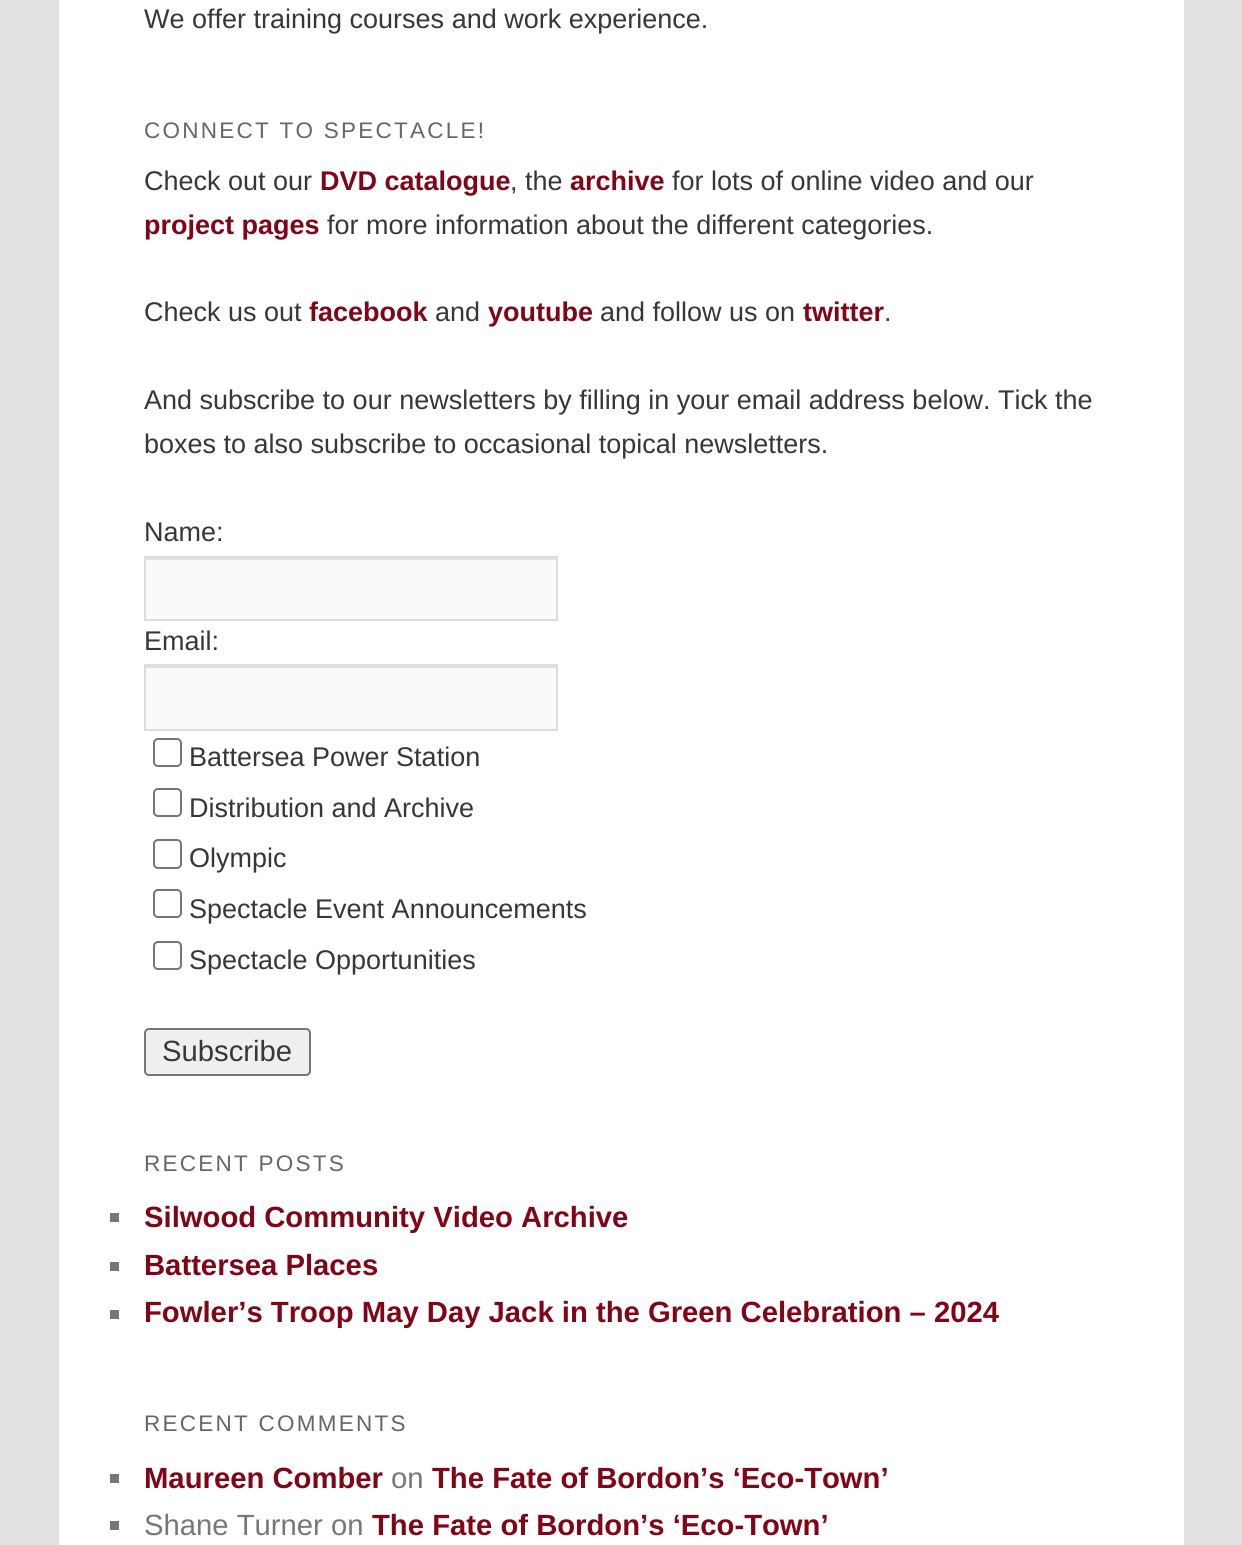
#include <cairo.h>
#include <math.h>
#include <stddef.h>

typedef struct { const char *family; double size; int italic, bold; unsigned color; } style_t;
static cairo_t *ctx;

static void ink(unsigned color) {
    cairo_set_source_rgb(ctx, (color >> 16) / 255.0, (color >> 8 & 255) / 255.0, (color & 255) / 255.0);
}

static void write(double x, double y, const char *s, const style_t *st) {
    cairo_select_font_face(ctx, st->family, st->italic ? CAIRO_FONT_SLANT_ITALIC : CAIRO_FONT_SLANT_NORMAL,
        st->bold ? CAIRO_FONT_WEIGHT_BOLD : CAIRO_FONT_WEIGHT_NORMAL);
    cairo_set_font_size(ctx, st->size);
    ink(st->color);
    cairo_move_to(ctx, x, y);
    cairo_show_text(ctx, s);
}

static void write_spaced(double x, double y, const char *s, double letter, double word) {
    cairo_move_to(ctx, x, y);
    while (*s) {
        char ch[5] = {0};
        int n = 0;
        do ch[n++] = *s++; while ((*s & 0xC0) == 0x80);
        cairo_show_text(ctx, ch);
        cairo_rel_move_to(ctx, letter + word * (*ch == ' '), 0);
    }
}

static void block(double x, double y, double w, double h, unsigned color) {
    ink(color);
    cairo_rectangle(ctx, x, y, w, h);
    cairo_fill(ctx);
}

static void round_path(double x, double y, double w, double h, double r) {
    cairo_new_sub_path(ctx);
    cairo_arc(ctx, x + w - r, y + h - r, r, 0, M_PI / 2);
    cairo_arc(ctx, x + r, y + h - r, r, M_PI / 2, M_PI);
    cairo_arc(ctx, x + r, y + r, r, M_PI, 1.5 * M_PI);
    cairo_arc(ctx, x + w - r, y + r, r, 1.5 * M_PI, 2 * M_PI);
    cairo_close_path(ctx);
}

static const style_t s1 = {"Liberation Sans", 27, 0, 0, 0x373737};
static const style_t s2 = {"Liberation Sans", 27, 0, 1, 0x800517};
static const style_t s3 = {"Liberation Sans", 29.25, 0, 0, 0x373737};
static const style_t s4 = {"Liberation Sans", 29.25, 0, 1, 0x800517};
static const style_t s5 = {"Liberation Sans", 29.25, 0, 0, 0x777777};

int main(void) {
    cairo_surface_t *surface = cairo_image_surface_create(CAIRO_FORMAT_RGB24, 1242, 1545);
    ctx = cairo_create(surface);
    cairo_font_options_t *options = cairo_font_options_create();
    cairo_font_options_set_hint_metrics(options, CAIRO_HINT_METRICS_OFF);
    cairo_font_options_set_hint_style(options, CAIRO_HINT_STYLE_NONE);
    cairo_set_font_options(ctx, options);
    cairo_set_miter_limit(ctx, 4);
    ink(0xe2e2e2);
    cairo_paint(ctx);
    block(59, 0, 1125, 1545, 0xffffff);
    write(144, 28, "We offer training courses and work experience.", &s1);
    cairo_set_font_size(ctx, 22.5);
    ink(0x666666);
    write_spaced(144, 138, "CONNECT TO SPECTACLE!", 2.25, 0);
    write(144, 190, "Check out our", &s1);
    write(320, 190, "DVD catalogue", &s2);
    write(510, 190, ", the", &s1);
    write(570, 190, "archive", &s2);
    write(672, 190, "for lots of online video and our", &s1);
    write(144, 234, "project pages", &s2);
    write(327, 234, "for more information about the different categories.", &s1);
    write(144, 321, "Check us out", &s1);
    write(309, 321, "facebook", &s2);
    write(435, 321, "and", &s1);
    write(488, 321, "youtube", &s2);
    write(600, 321, "and follow us on", &s1);
    write(803, 321, "twitter", &s2);
    write(884, 321, ".", &s1);
    write(144, 409, "And subscribe to our newsletters by filling in your email address below. Tick the", &s1);
    write(144, 453, "boxes to also subscribe to occasional topical newsletters.", &s1);
    write(144, 541, "Name:", &s1);
    block(146, 560, 410, 59, 0xfafafa);
    block(146, 558, 410, 2, 0xe1e1e1);
    cairo_rectangle(ctx, 145, 557, 412, 63);
    ink(0xdddddd);
    cairo_stroke(ctx);
    write(144, 650, "Email:", &s1);
    block(146, 668, 410, 61, 0xfafafa);
    block(146, 666, 410, 2, 0xe1e1e1);
    cairo_rectangle(ctx, 145, 665, 412, 65);
    ink(0xdddddd);
    cairo_stroke(ctx);
    round_path(154, 739, 27, 27, 4);
    ink(0x767676);
    cairo_stroke(ctx);
    write(189, 766, "Battersea Power Station", &s1);
    round_path(154, 789, 27, 27, 4);
    ink(0x767676);
    cairo_stroke(ctx);
    write(189, 817, "Distribution and Archive", &s1);
    round_path(154, 840, 27, 28, 4);
    ink(0x767676);
    cairo_stroke(ctx);
    write(189, 867, "Olympic", &s1);
    round_path(154, 890, 27, 27, 4);
    ink(0x767676);
    cairo_stroke(ctx);
    write(189, 918, "Spectacle Event Announcements", &s1);
    round_path(154, 942, 27, 27, 4);
    ink(0x767676);
    cairo_stroke(ctx);
    write(189, 969, "Spectacle Opportunities", &s1);
    ink(0xefefef);
    round_path(145, 1029, 165, 46, 4);
    cairo_fill_preserve(ctx);
    ink(0x767676);
    cairo_stroke(ctx);
    write(162, 1061, "Subscribe", &s3);
    cairo_set_font_size(ctx, 22.5);
    ink(0x666666);
    write_spaced(144, 1171, "RECENT POSTS", 2.25, 0);
    block(110, 1213, 9, 9, 0x777777);
    write(144, 1227, "Silwood Community Video Archive", &s4);
    block(110, 1262, 9, 9, 0x777777);
    write(144, 1275, "Battersea Places", &s4);
    block(110, 1310, 9, 9, 0x777777);
    write(144, 1322, "Fowler’s Troop May Day Jack in the Green Celebration – 2024", &s4);
    cairo_select_font_face(ctx, "Liberation Sans", CAIRO_FONT_SLANT_NORMAL, CAIRO_FONT_WEIGHT_NORMAL);
    cairo_set_font_size(ctx, 22.5);
    ink(0x666666);
    write_spaced(144, 1431, "RECENT COMMENTS", 2.25, 0);
    block(110, 1474, 9, 9, 0x777777);
    write(144, 1488, "Maureen Comber", &s4);
    write(391, 1488, "on", &s5);
    write(432, 1488, "The Fate of Bordon’s ‘Eco-Town’", &s4);
    block(110, 1521, 9, 9, 0x777777);
    write(144, 1535, "Shane Turner on", &s5);
    write(372, 1535, "The Fate of Bordon’s ‘Eco-Town’", &s4);
    cairo_surface_write_to_png(surface, "screenshot.png");
    cairo_font_options_destroy(options);
    cairo_destroy(ctx);
    cairo_surface_destroy(surface);
    return 0;
}
